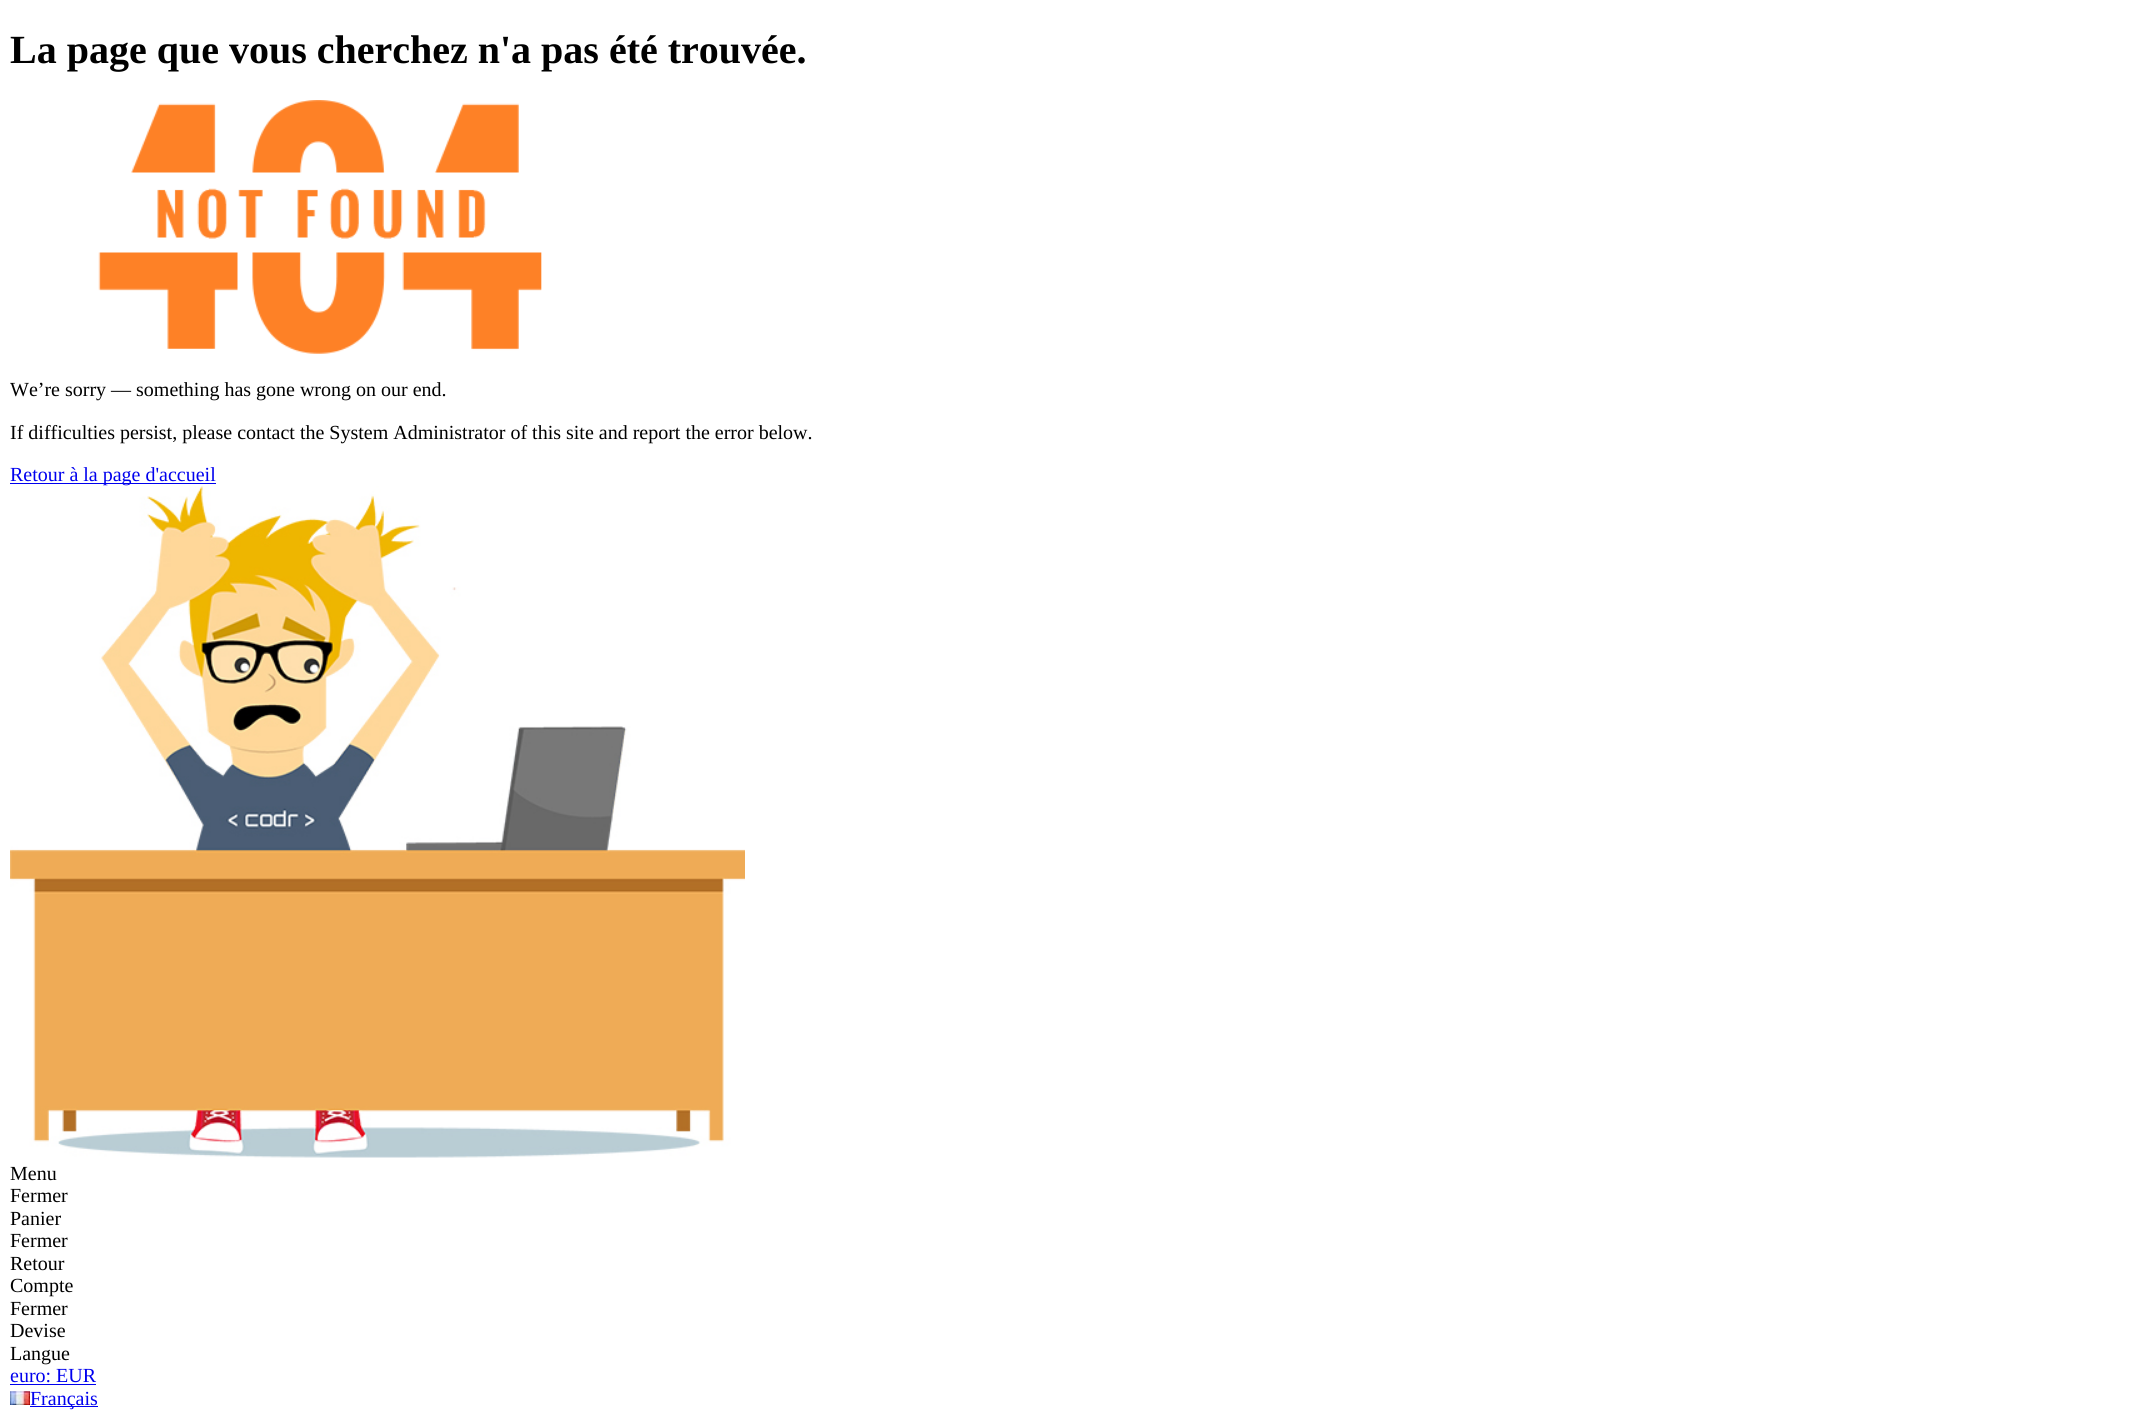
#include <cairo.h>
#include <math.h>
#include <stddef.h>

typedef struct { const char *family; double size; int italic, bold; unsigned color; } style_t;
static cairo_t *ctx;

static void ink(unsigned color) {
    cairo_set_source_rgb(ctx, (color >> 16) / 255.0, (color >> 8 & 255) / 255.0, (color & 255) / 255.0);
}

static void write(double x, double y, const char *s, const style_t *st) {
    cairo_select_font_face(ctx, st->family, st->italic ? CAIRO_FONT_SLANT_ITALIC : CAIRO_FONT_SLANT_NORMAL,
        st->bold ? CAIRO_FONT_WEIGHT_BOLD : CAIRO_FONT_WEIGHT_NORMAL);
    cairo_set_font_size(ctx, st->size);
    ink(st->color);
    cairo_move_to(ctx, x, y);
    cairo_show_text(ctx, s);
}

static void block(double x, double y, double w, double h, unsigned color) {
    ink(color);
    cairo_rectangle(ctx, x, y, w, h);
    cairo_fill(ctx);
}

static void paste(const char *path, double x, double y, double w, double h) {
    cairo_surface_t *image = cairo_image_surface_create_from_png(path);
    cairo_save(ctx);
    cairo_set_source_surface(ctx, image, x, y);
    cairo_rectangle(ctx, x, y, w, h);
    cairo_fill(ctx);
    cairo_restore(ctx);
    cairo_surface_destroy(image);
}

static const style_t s1 = {"Liberation Serif", 40, 0, 1, 0x000000};
static const style_t s2 = {"Liberation Serif", 20, 0, 0, 0x000000};
static const style_t s3 = {"Liberation Serif", 20, 0, 0, 0x0000ee};

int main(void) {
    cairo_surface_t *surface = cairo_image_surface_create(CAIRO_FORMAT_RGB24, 2151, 1411);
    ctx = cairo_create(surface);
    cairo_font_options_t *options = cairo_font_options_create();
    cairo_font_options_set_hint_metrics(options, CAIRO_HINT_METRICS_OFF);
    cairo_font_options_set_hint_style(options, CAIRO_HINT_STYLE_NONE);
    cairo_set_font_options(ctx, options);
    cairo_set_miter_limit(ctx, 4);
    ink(0xffffff);
    cairo_paint(ctx);
    write(10, 63, "La page que vous cherchez n'a pas été trouvée.", &s1);
    paste("pic1.png", 98, 100, 444, 254);
    write(10, 396, "We’re sorry — something has gone wrong on our end.", &s2);
    write(10, 439, "If difficulties persist, please contact the System Administrator of this site and report the error below.", &s2);
    block(10, 483, 206, 1, 0x0000ee);
    write(10, 481, "Retour à la page d'accueil", &s3);
    paste("pic2.png", 10, 486, 735, 672);
    write(10, 1180, "Menu", &s2);
    write(10, 1202, "Fermer", &s2);
    write(10, 1225, "Panier", &s2);
    write(10, 1247, "Fermer", &s2);
    write(10, 1270, "Retour", &s2);
    write(10, 1292, "Compte", &s2);
    write(10, 1315, "Fermer", &s2);
    write(10, 1337, "Devise", &s2);
    write(10, 1360, "Langue", &s2);
    write(10, 1382, "euro: EUR", &s3);
    block(10, 1384, 86, 1, 0x0000ee);
    paste("pic3.png", 10, 1391, 20, 14);
    block(30, 1406, 68, 1, 0x0000ee);
    write(30, 1405, "Français", &s3);
    cairo_surface_write_to_png(surface, "screenshot.png");
    cairo_font_options_destroy(options);
    cairo_destroy(ctx);
    cairo_surface_destroy(surface);
    return 0;
}
